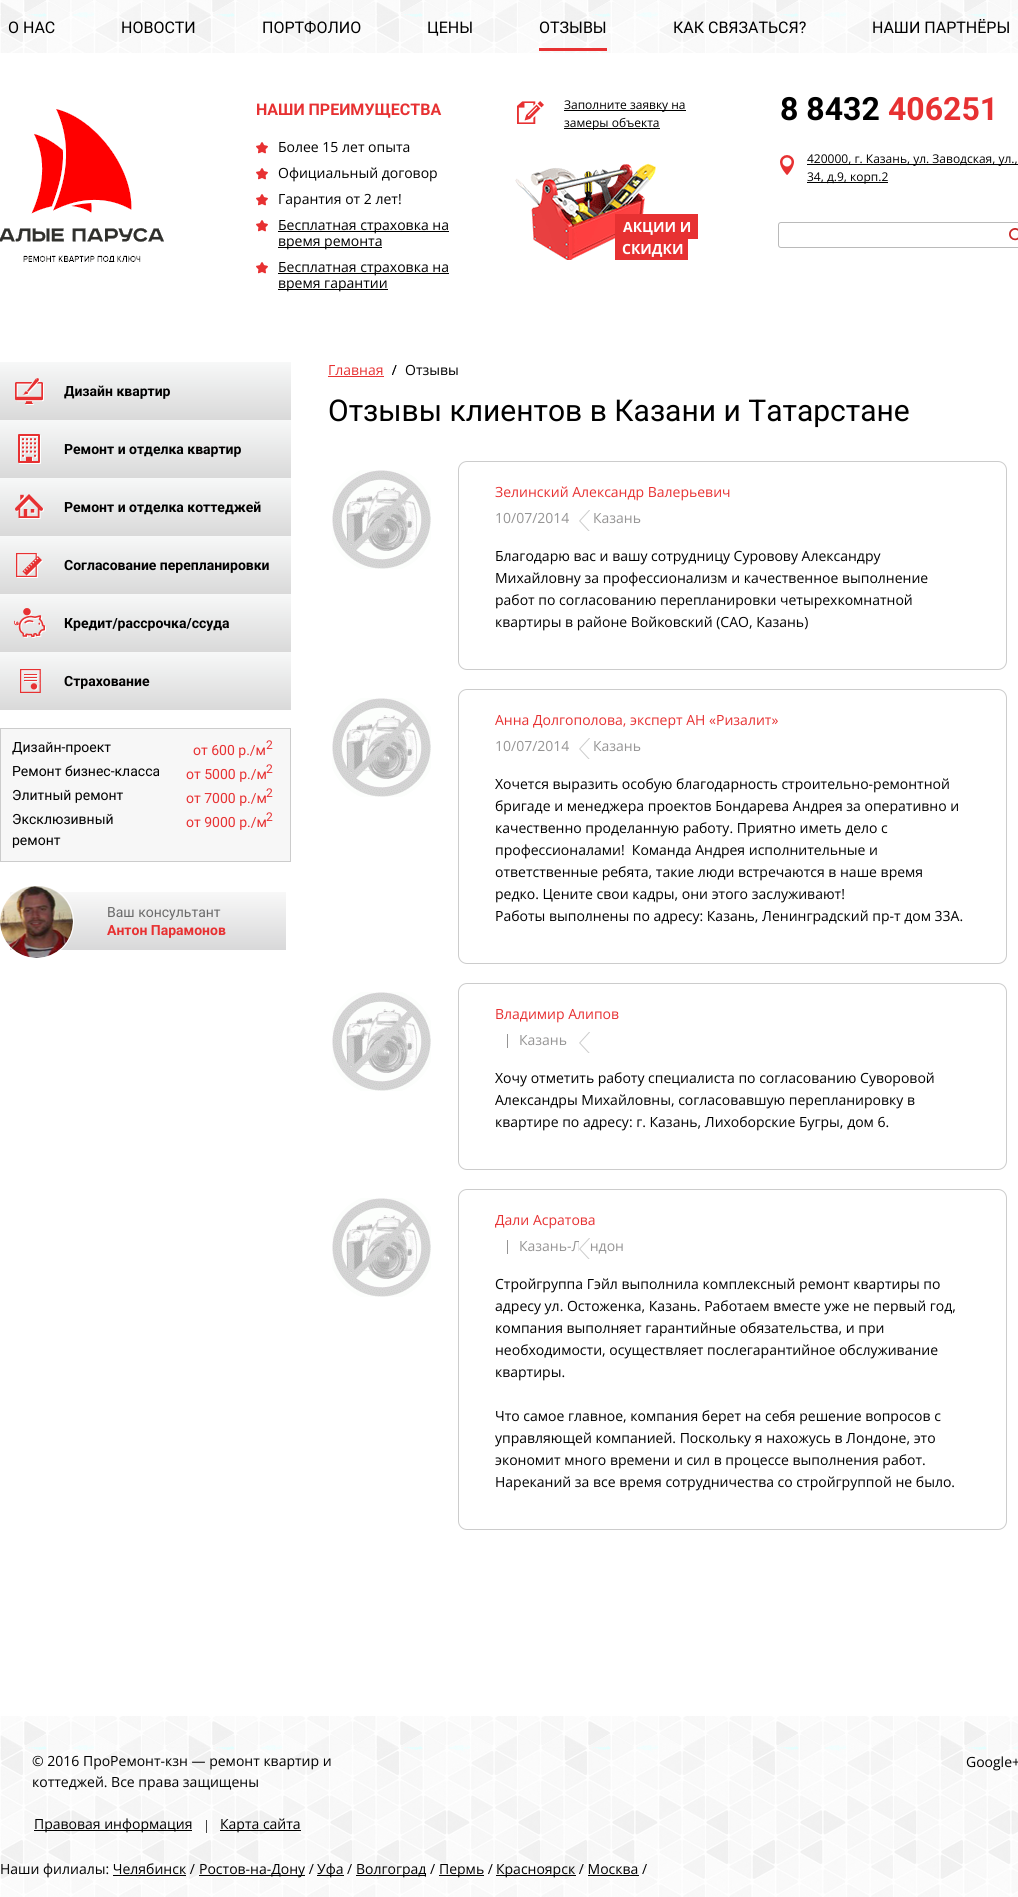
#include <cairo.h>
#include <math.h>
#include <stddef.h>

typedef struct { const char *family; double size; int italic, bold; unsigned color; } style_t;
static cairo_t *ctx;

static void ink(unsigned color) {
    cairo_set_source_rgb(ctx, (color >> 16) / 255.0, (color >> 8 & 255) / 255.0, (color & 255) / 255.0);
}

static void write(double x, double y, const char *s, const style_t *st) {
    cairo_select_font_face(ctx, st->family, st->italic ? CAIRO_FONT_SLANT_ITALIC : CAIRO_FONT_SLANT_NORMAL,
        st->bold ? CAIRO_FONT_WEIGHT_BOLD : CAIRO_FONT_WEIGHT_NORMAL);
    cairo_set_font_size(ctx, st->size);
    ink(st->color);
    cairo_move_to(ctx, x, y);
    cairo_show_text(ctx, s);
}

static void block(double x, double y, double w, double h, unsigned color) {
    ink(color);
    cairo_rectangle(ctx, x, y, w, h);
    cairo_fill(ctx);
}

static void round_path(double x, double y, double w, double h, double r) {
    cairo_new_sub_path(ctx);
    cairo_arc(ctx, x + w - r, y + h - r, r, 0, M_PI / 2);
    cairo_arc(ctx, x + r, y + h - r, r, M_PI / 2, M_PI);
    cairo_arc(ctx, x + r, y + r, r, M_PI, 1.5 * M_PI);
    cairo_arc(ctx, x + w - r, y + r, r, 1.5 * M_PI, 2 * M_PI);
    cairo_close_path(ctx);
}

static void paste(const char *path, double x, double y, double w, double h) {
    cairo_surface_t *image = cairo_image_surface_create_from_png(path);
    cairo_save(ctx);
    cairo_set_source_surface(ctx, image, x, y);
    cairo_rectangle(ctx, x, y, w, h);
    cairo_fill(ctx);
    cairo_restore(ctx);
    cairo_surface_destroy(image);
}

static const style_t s1 = {"Roboto", 16, 0, 0, 0x000000};
static const style_t s2 = {"Roboto", 16, 0, 1, 0xe73132};
static const style_t s3 = {"Open Sans", 14, 0, 0, 0x000000};
static const style_t s4 = {"Open Sans", 12, 0, 0, 0x000000};
static const style_t s5 = {"Open Sans", 14, 0, 1, 0xffffff};
static const style_t s6 = {"Roboto", 32, 0, 1, 0x000000};
static const style_t s7 = {"Roboto", 32, 0, 1, 0xe73132};
static const style_t s8 = {"Roboto", 14, 0, 1, 0x000000};
static const style_t s9 = {"Roboto", 14, 0, 0, 0x000000};
static const style_t s10 = {"Roboto", 14, 0, 0, 0xe73132};
static const style_t s11 = {"Roboto", 12, 0, 0, 0xe73132};
static const style_t s12 = {"Roboto", 14, 0, 0, 0x6a6a6a};
static const style_t s13 = {"Roboto", 14, 0, 1, 0xe73132};
static const style_t s14 = {"Open Sans", 14, 0, 0, 0xe73132};
static const style_t s15 = {"Roboto", 30, 0, 0, 0x000000};
static const style_t s16 = {"Open Sans", 14, 0, 0, 0x959494};

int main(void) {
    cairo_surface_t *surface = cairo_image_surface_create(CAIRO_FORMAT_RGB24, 1018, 1897);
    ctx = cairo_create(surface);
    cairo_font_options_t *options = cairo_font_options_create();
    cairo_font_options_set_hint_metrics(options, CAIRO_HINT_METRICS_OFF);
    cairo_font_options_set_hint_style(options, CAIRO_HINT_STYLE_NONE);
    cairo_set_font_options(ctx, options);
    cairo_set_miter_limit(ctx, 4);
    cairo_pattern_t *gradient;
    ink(0xffffff);
    cairo_paint(ctx);
    paste("pic1.png", 0, 0, 1018, 53);
    write(8, 33, "О НАС", &s1);
    write(121, 33, "НОВОСТИ", &s1);
    write(262, 33, "ПОРТФОЛИО", &s1);
    write(427, 33, "ЦЕНЫ", &s1);
    write(539, 33, "ОТЗЫВЫ", &s1);
    block(539, 48, 68, 3, 0xe73132);
    write(673, 33, "КАК СВЯЗАТЬСЯ?", &s1);
    write(872, 33, "НАШИ ПАРТНЁРЫ", &s1);
    paste("pic2.png", 0, 109, 164, 153);
    write(256, 115, "НАШИ ПРЕИМУЩЕСТВА", &s2);
    paste("pic3.png", 256, 142, 12, 12);
    write(278, 152, "Более 15 лет опыта", &s3);
    paste("pic3.png", 256, 168, 12, 12);
    write(278, 178, "Официальный договор", &s3);
    paste("pic3.png", 256, 194, 12, 12);
    write(278, 204, "Гарантия от 2 лет!", &s3);
    paste("pic3.png", 256, 220, 12, 12);
    block(278, 231, 171, 1, 0x000000);
    write(278, 230, "Бесплатная страховка на", &s3);
    block(278, 247, 104, 1, 0x000000);
    write(278, 246, "время ремонта", &s3);
    paste("pic3.png", 256, 262, 12, 12);
    block(278, 273, 171, 1, 0x000000);
    write(278, 272, "Бесплатная страховка на", &s3);
    block(278, 289, 110, 1, 0x000000);
    write(278, 288, "время гарантии", &s3);
    paste("pic4.png", 517, 101, 27, 23);
    block(564, 110, 122, 1, 0x000000);
    write(564, 109, "Заполните заявку на", &s4);
    block(564, 128, 96, 1, 0x000000);
    write(564, 127, "замеры объекта", &s4);
    paste("pic5.png", 515, 163, 141, 97);
    block(615, 214, 83, 25, 0xe73132);
    write(623, 232, "АКЦИИ И", &s5);
    block(615, 239, 73, 21, 0xe73132);
    write(622, 254, "СКИДКИ", &s5);
    write(780, 120, "8 8432", &s6);
    write(888, 120, "406251", &s7);
    paste("pic6.png", 780, 155, 14, 20);
    block(807, 164, 211, 1, 0x000000);
    write(807, 163, "420000, г. Казань, ул. Заводская, ул.,", &s4);
    block(807, 182, 81, 1, 0x000000);
    write(807, 181, "34, д.9, корп.2", &s4);
    round_path(778.5, 222.5, 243, 25, 2.5);
    ink(0xbababa);
    cairo_set_line_width(ctx, 1);
    cairo_stroke(ctx);
    paste("pic7.png", 1009, 228, 9, 13);
    gradient = cairo_pattern_create_linear(146, 362, 146, 420);
    cairo_pattern_add_color_stop_rgba(gradient, 0, 0.969, 0.973, 0.973, 1);
    cairo_pattern_add_color_stop_rgba(gradient, 1, 0.851, 0.851, 0.851, 1);
    cairo_set_source(ctx, gradient);
    cairo_pattern_destroy(gradient);
    cairo_rectangle(ctx, 0, 362, 291, 58);
    cairo_fill(ctx);
    paste("pic8.png", 15, 378, 29, 27);
    write(64, 396, "Дизайн квартир", &s8);
    gradient = cairo_pattern_create_linear(146, 420, 146, 478);
    cairo_pattern_add_color_stop_rgba(gradient, 0, 0.969, 0.973, 0.973, 1);
    cairo_pattern_add_color_stop_rgba(gradient, 1, 0.851, 0.851, 0.851, 1);
    cairo_set_source(ctx, gradient);
    cairo_pattern_destroy(gradient);
    cairo_rectangle(ctx, 0, 420, 291, 58);
    cairo_fill(ctx);
    paste("pic9.png", 18, 434, 23, 30);
    write(64, 454, "Ремонт и отделка квартир", &s8);
    gradient = cairo_pattern_create_linear(146, 478, 146, 536);
    cairo_pattern_add_color_stop_rgba(gradient, 0, 0.969, 0.973, 0.973, 1);
    cairo_pattern_add_color_stop_rgba(gradient, 1, 0.851, 0.851, 0.851, 1);
    cairo_set_source(ctx, gradient);
    cairo_pattern_destroy(gradient);
    cairo_rectangle(ctx, 0, 478, 291, 58);
    cairo_fill(ctx);
    paste("pic10.png", 15, 494, 29, 25);
    write(64, 512, "Ремонт и отделка коттеджей", &s8);
    gradient = cairo_pattern_create_linear(146, 536, 146, 594);
    cairo_pattern_add_color_stop_rgba(gradient, 0, 0.969, 0.973, 0.973, 1);
    cairo_pattern_add_color_stop_rgba(gradient, 1, 0.851, 0.851, 0.851, 1);
    cairo_set_source(ctx, gradient);
    cairo_pattern_destroy(gradient);
    cairo_rectangle(ctx, 0, 536, 291, 58);
    cairo_fill(ctx);
    paste("pic11.png", 16, 553, 27, 25);
    write(64, 570, "Согласование перепланировки", &s8);
    gradient = cairo_pattern_create_linear(146, 594, 146, 652);
    cairo_pattern_add_color_stop_rgba(gradient, 0, 0.969, 0.973, 0.973, 1);
    cairo_pattern_add_color_stop_rgba(gradient, 1, 0.851, 0.851, 0.851, 1);
    cairo_set_source(ctx, gradient);
    cairo_pattern_destroy(gradient);
    cairo_rectangle(ctx, 0, 594, 291, 58);
    cairo_fill(ctx);
    paste("pic12.png", 14, 608, 32, 30);
    write(64, 628, "Кредит/рассрочка/ссуда", &s8);
    gradient = cairo_pattern_create_linear(146, 652, 146, 710);
    cairo_pattern_add_color_stop_rgba(gradient, 0, 0.969, 0.973, 0.973, 1);
    cairo_pattern_add_color_stop_rgba(gradient, 1, 0.851, 0.851, 0.851, 1);
    cairo_set_source(ctx, gradient);
    cairo_pattern_destroy(gradient);
    cairo_rectangle(ctx, 0, 652, 291, 58);
    cairo_fill(ctx);
    paste("pic13.png", 20, 669, 21, 24);
    write(64, 686, "Страхование", &s8);
    ink(0xf7f7f7);
    cairo_rectangle(ctx, 0.5, 728.5, 290, 133);
    cairo_fill_preserve(ctx);
    ink(0xcccccc);
    cairo_stroke(ctx);
    write(12, 752, "Дизайн-проект", &s9);
    write(193, 755, "от 600 р./м", &s10);
    write(266, 749, "2", &s11);
    write(12, 776, "Ремонт бизнес-класса", &s9);
    write(186, 779, "от 5000 р./м", &s10);
    write(266, 773, "2", &s11);
    write(12, 800, "Элитный ремонт", &s9);
    write(186, 803, "от 7000 р./м", &s10);
    write(266, 797, "2", &s11);
    write(12, 824, "Эксклюзивный", &s9);
    write(12, 845, "ремонт", &s9);
    write(186, 827, "от 9000 р./м", &s10);
    write(266, 821, "2", &s11);
    gradient = cairo_pattern_create_linear(148, 892, 148, 950);
    cairo_pattern_add_color_stop_rgba(gradient, 0, 0.973, 0.973, 0.973, 1);
    cairo_pattern_add_color_stop_rgba(gradient, 1, 0.847, 0.847, 0.851, 1);
    cairo_set_source(ctx, gradient);
    cairo_pattern_destroy(gradient);
    cairo_rectangle(ctx, 10, 892, 276, 58);
    cairo_fill(ctx);
    cairo_arc(ctx, 36.5, 921.5, 37, 0, 2 * M_PI);
    ink(0xffffff);
    cairo_stroke(ctx);
    paste("pic14.png", 0, 886, 73, 72);
    write(107, 917, "Ваш консультант", &s12);
    write(107, 935, "Антон Парамонов", &s13);
    write(328, 375, "Главная", &s14);
    block(328, 376, 56, 1, 0xe73132);
    paste("pic15.png", 392, 365, 5, 10);
    write(405, 375, "Отзывы", &s3);
    write(328, 421, "Отзывы клиентов в Казани и Татарстане", &s15);
    paste("pic16.png", 332, 470, 99, 99);
    round_path(458.5, 461.5, 548, 208, 8.5);
    ink(0xcccccc);
    cairo_stroke(ctx);
    write(495, 497, "Зелинский Александр Валерьевич", &s14);
    write(495, 523, "10/07/2014", &s16);
    paste("pic17.png", 579, 510, 11, 21);
    write(593, 523, "Казань", &s16);
    write(495, 561, "Благодарю вас и вашу сотрудницу Суровову Александру", &s3);
    write(495, 583, "Михайловну за профессионализм и качественное выполнение", &s3);
    write(495, 605, "работ по согласованию перепланировки четырехкомнатной", &s3);
    write(495, 627, "квартиры в районе Войковский (САО, Казань)", &s3);
    paste("pic16.png", 332, 698, 99, 99);
    round_path(458.5, 689.5, 548, 274, 8.5);
    ink(0xcccccc);
    cairo_stroke(ctx);
    write(495, 725, "Анна Долгополова, эксперт АН «Ризалит»", &s14);
    write(495, 751, "10/07/2014", &s16);
    paste("pic17.png", 579, 738, 11, 21);
    write(593, 751, "Казань", &s16);
    write(495, 789, "Хочется выразить особую благодарность строительно-ремонтной", &s3);
    write(495, 811, "бригаде и менеджера проектов Бондарева Андрея за оперативно и", &s3);
    write(495, 833, "качественно проделанную работу. Приятно иметь дело с", &s3);
    write(495, 855, "профессионалами!  Команда Андрея исполнительные и", &s3);
    write(495, 877, "ответственные ребята, такие люди встречаются в наше время", &s3);
    write(495, 899, "редко. Цените свои кадры, они этого заслуживают!", &s3);
    write(495, 921, "Работы выполнены по адресу: Казань, Ленинградский пр-т дом 33А.", &s3);
    paste("pic18.png", 332, 992, 99, 99);
    round_path(458.5, 983.5, 548, 186, 8.5);
    ink(0xcccccc);
    cairo_stroke(ctx);
    write(495, 1019, "Владимир Алипов", &s14);
    block(507, 1034, 1, 14, 0x959494);
    write(519, 1045, "Казань", &s16);
    paste("pic17.png", 579, 1032, 11, 21);
    write(495, 1083, "Хочу отметить работу специалиста по согласованию Суворовой", &s3);
    write(495, 1105, "Александры Михайловны, согласовавшую перепланировку в", &s3);
    write(495, 1127, "квартире по адресу: г. Казань, Лихоборские Бугры, дом 6.", &s3);
    paste("pic19.png", 332, 1198, 99, 99);
    round_path(458.5, 1189.5, 548, 340, 8.5);
    ink(0xcccccc);
    cairo_stroke(ctx);
    write(495, 1225, "Дали Асратова", &s14);
    write(519, 1251, "Казань-Лондон", &s16);
    paste("pic17.png", 579, 1238, 11, 21);
    block(507, 1240, 1, 14, 0x959494);
    write(495, 1289, "Стройгруппа Гэйл выполнила комплексный ремонт квартиры по", &s3);
    write(495, 1311, "адресу ул. Остоженка, Казань. Работаем вместе уже не первый год,", &s3);
    write(495, 1333, "компания выполняет гарантийные обязательства, и при", &s3);
    write(495, 1355, "необходимости, осуществляет послегарантийное обслуживание", &s3);
    write(495, 1377, "квартиры.", &s3);
    write(495, 1421, "Что самое главное, компания берет на себя решение вопросов с", &s3);
    write(495, 1443, "управляющей компанией. Поскольку я нахожусь в Лондоне, это", &s3);
    write(495, 1465, "экономит много времени и сил в процессе выполнения работ.", &s3);
    write(495, 1487, "Нареканий за все время сотрудничества со стройгруппой не было.", &s3);
    paste("pic20.png", 0, 1716, 1018, 181);
    write(32, 1766, "© 2016 ПроРемонт-кзн — ремонт квартир и", &s3);
    write(32, 1787, "коттеджей. Все права защищены", &s3);
    block(34, 1830, 158, 1, 0x000000);
    write(34, 1829, "Правовая информация", &s3);
    block(206, 1820, 1, 13, 0x424242);
    block(220, 1830, 81, 1, 0x000000);
    write(220, 1829, "Карта сайта", &s3);
    write(966, 1767, "Google+", &s3);
    write(0, 1874, "Наши филиалы: Челябинск /", &s3);
    block(199, 1875, 106, 1, 0x000000);
    write(199, 1874, "Ростов-на-Дону /", &s3);
    block(317, 1875, 27, 1, 0x000000);
    write(317, 1874, "Уфа /", &s3);
    block(356, 1875, 70, 1, 0x000000);
    write(356, 1874, "Волгоград /", &s3);
    block(439, 1875, 45, 1, 0x000000);
    write(439, 1874, "Пермь /", &s3);
    block(496, 1875, 80, 1, 0x000000);
    write(496, 1874, "Красноярск / Москва /", &s3);
    block(113, 1875, 73, 1, 0x000000);
    block(588, 1875, 51, 1, 0x000000);
    cairo_surface_write_to_png(surface, "screenshot.png");
    cairo_font_options_destroy(options);
    cairo_destroy(ctx);
    cairo_surface_destroy(surface);
    return 0;
}
